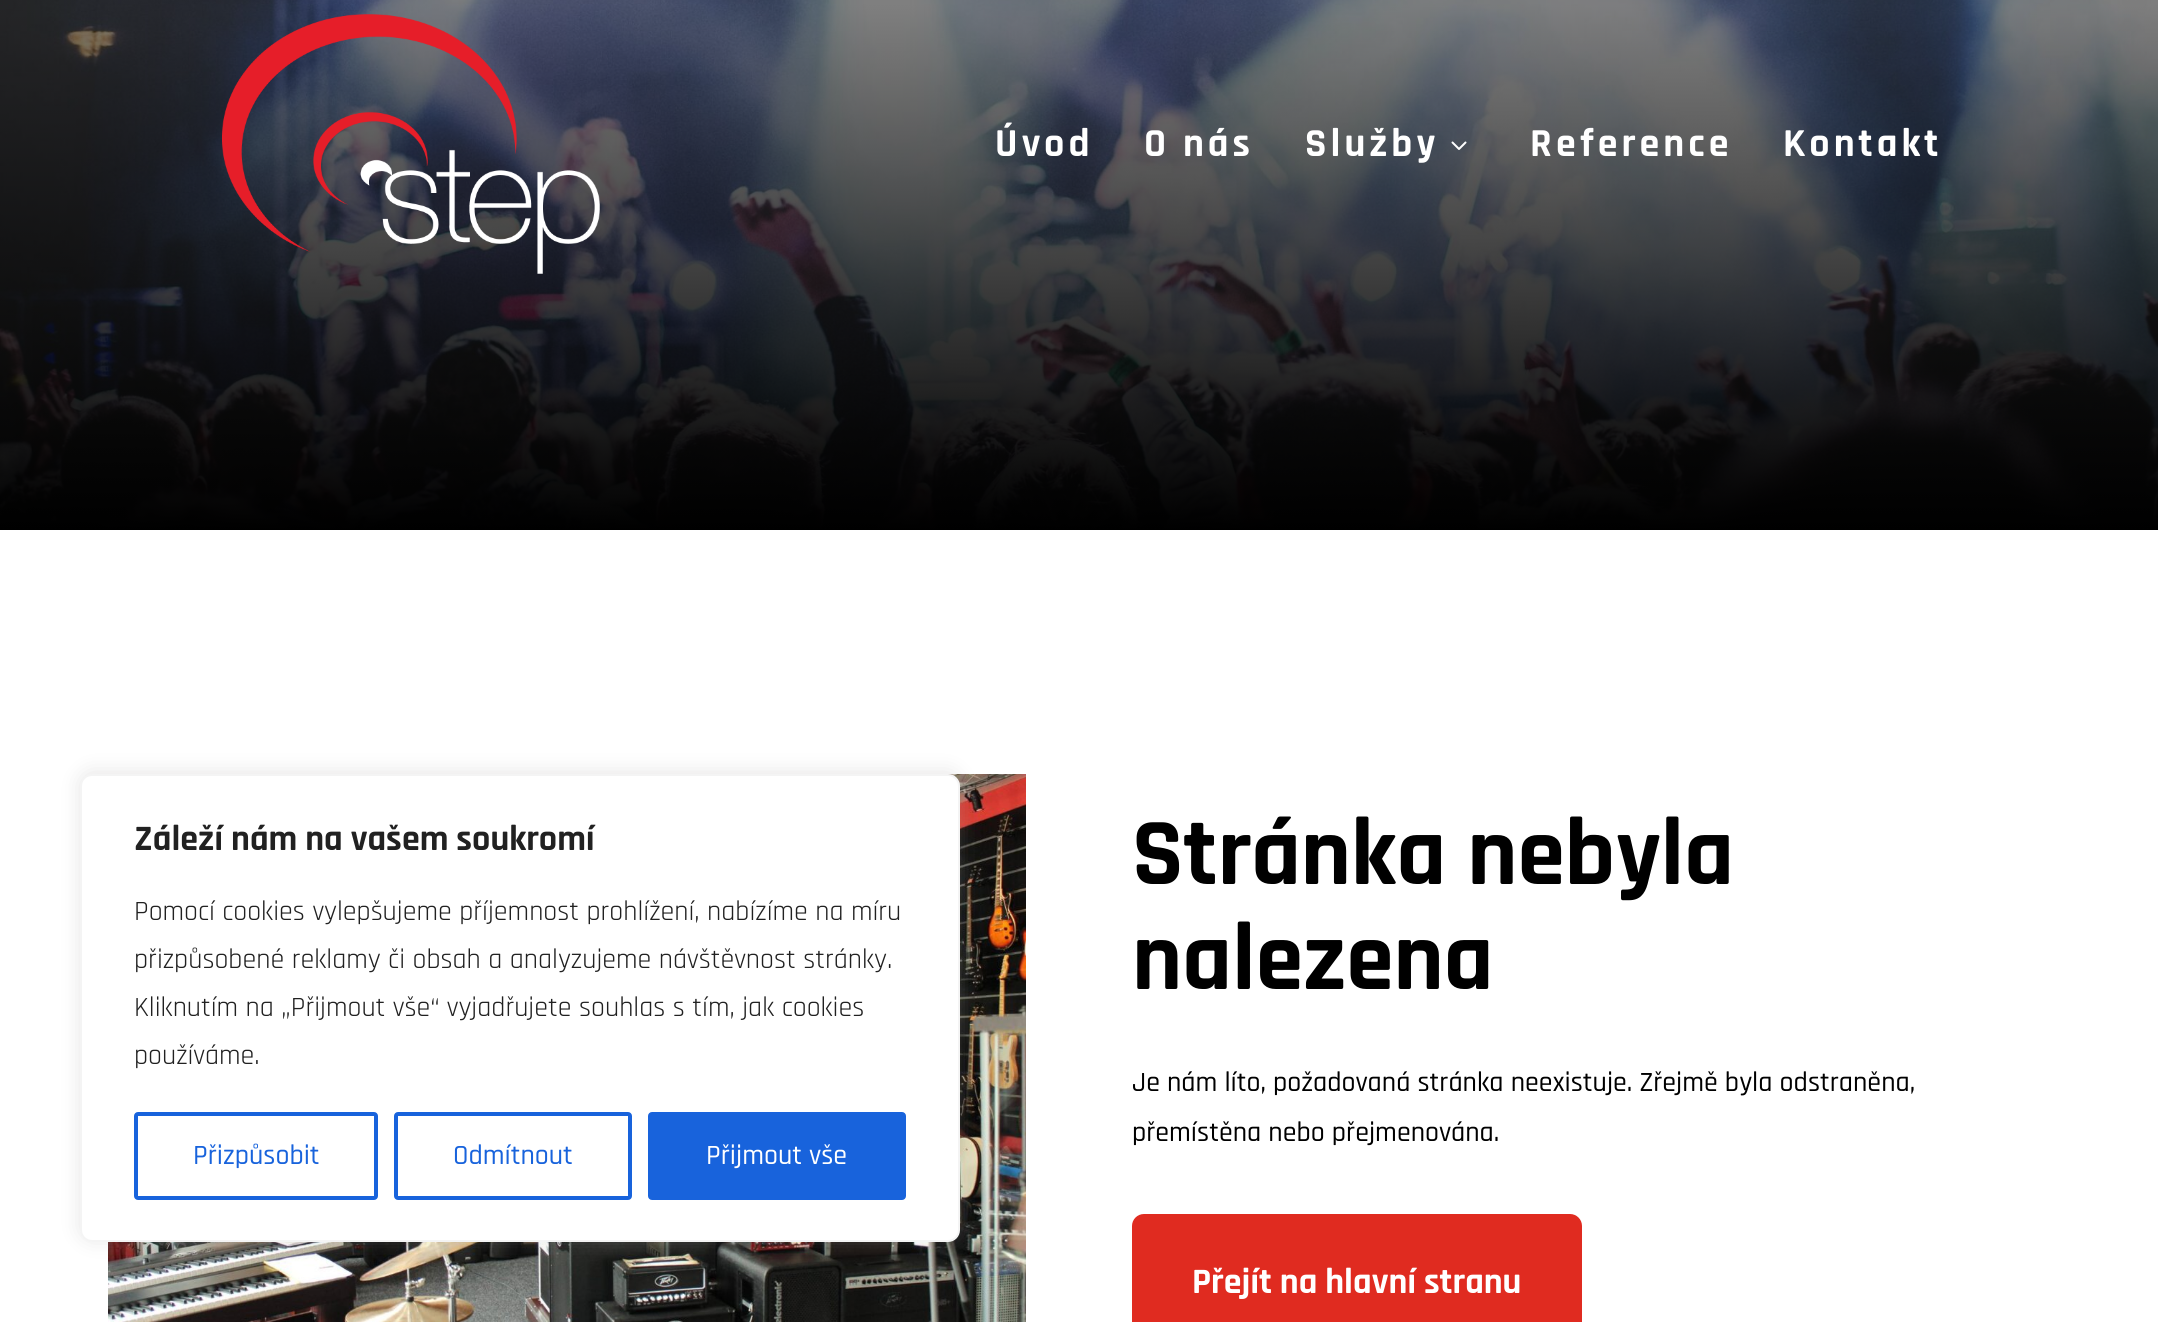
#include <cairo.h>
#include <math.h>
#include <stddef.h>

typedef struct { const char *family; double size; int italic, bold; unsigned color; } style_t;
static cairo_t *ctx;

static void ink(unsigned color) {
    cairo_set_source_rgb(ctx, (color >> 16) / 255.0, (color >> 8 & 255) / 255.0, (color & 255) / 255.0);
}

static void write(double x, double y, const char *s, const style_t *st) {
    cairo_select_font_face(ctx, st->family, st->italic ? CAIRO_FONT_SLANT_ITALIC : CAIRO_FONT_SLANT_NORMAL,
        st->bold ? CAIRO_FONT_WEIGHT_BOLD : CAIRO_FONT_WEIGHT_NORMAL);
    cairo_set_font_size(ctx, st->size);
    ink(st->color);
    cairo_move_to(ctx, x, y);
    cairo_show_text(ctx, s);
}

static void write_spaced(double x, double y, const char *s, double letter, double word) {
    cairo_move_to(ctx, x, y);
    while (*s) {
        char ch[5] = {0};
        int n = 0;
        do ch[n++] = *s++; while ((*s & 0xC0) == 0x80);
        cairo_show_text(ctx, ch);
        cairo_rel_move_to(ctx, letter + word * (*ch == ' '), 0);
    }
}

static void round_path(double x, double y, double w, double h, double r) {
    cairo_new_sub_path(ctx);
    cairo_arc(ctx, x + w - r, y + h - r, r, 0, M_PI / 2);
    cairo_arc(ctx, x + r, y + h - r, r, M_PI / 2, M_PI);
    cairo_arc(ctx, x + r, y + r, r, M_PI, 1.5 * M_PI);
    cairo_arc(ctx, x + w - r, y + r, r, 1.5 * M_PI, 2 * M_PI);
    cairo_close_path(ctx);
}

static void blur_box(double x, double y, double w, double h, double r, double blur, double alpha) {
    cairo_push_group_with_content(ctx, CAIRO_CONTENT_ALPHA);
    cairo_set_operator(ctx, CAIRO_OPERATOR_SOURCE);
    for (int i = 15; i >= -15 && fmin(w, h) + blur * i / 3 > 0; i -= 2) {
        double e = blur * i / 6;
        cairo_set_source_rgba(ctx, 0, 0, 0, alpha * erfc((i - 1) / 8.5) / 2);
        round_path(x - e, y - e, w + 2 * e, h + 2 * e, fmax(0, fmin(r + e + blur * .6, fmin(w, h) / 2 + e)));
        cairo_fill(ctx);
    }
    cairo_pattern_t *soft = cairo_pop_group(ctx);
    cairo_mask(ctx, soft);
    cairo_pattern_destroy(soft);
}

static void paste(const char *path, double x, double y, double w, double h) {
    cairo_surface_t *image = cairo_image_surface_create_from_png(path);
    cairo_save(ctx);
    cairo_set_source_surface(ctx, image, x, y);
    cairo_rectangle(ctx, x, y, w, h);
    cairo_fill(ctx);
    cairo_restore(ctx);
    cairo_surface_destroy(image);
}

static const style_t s1 = {"Rajdhani", 36, 0, 1, 0x212121};
static const style_t s2 = {"Rajdhani", 28, 0, 0, 0x212121};
static const style_t s3 = {"Rajdhani Medium", 28, 0, 0, 0x1863dc};
static const style_t s4 = {"Rajdhani Medium", 28, 0, 0, 0xffffff};
static const style_t s5 = {"Rajdhani", 96, 0, 1, 0x000000};
static const style_t s6 = {"Rajdhani Medium", 28, 0, 0, 0x000000};
static const style_t s7 = {"Rajdhani", 36, 0, 1, 0xffffff};

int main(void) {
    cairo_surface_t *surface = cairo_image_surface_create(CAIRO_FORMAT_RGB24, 2158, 1322);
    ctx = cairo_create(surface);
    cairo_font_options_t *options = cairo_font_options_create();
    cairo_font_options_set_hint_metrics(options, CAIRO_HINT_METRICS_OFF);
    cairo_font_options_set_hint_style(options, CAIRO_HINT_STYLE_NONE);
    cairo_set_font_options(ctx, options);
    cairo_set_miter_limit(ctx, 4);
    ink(0xffffff);
    cairo_paint(ctx);
    paste("pic4.png", 108, 774, 918, 548);
    ink(0xacabab);
    blur_box(80, 772, 880, 468, 12, 10, 0.3);
    ink(0xffffff);
    round_path(81, 775, 878, 466, 11);
    cairo_fill_preserve(ctx);
    ink(0xf4f4f4);
    cairo_stroke(ctx);
    write(134, 850, "Záleží nám na vašem soukromí", &s1);
    write(134, 920, "Pomocí cookies vylepšujeme příjemnost prohlížení, nabízíme na míru", &s2);
    write(134, 968, "přizpůsobené reklamy či obsah a analyzujeme návštěvnost stránky.", &s2);
    write(134, 1016, "Kliknutím na „Přijmout vše“ vyjadřujete souhlas s tím, jak cookies", &s2);
    write(134, 1064, "používáme.", &s2);
    round_path(136, 1114, 240, 84, 2);
    ink(0x1863dc);
    cairo_set_line_width(ctx, 4);
    cairo_stroke(ctx);
    write(193, 1164, "Přizpůsobit", &s3);
    round_path(396, 1114, 234, 84, 2);
    cairo_stroke(ctx);
    write(453, 1164, "Odmítnout", &s3);
    round_path(650, 1114, 254, 84, 2);
    cairo_fill_preserve(ctx);
    cairo_stroke(ctx);
    write(706, 1164, "Přijmout vše", &s4);
    paste("pic3.png", 0, 0, 2158, 530);
    paste("pic1.png", 222, 14, 378, 260);
    cairo_select_font_face(ctx, "Rajdhani", CAIRO_FONT_SLANT_NORMAL, CAIRO_FONT_WEIGHT_BOLD);
    cairo_set_font_size(ctx, 40);
    write_spaced(995, 156, "Úvod", 4, 0);
    write_spaced(1144, 156, "O nás", 4, 0);
    write_spaced(1305, 156, "Služby", 4, 0);
    paste("pic2.png", 1451, 141, 16, 9);
    write_spaced(1530, 156, "Reference", 4, 0);
    write_spaced(1783, 156, "Kontakt", 4, 0);
    write(1132, 884, "Stránka nebyla", &s5);
    write(1132, 989, "nalezena", &s5);
    write(1132, 1091, "Je nám líto, požadovaná stránka neexistuje. Zřejmě byla odstraněna,", &s6);
    write(1132, 1141, "přemístěna nebo přejmenována.", &s6);
    ink(0xe02b20);
    round_path(1132, 1214, 450, 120, 12);
    cairo_fill(ctx);
    write(1192, 1293, "Přejít na hlavní stranu", &s7);
    cairo_surface_write_to_png(surface, "screenshot.png");
    cairo_font_options_destroy(options);
    cairo_destroy(ctx);
    cairo_surface_destroy(surface);
    return 0;
}
